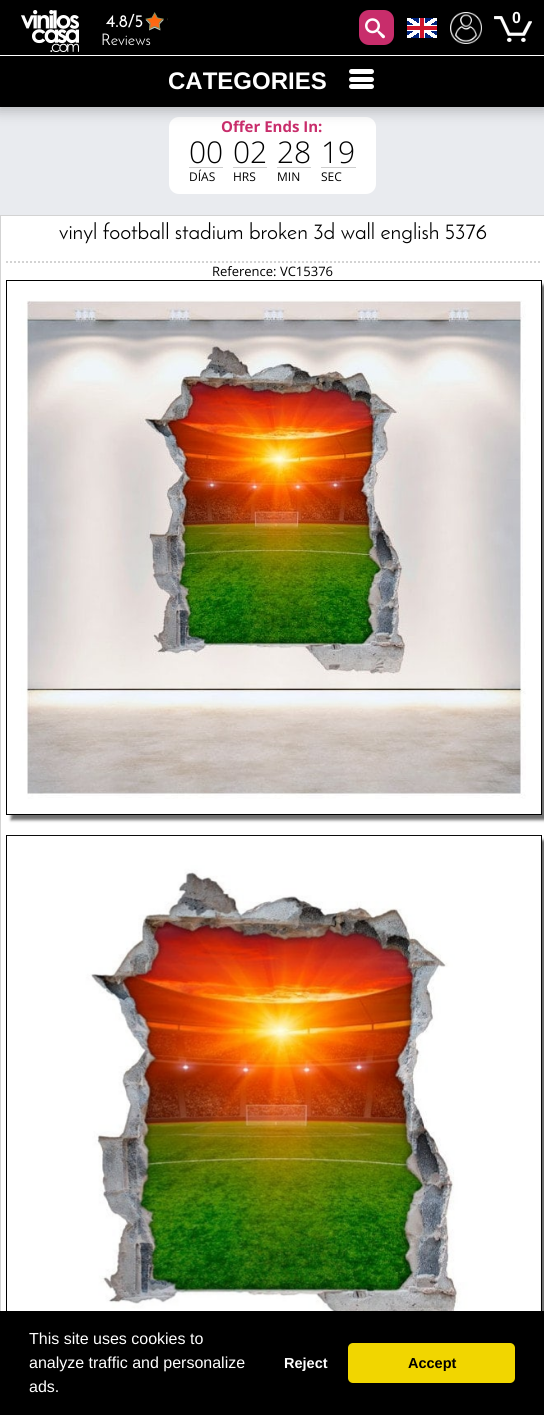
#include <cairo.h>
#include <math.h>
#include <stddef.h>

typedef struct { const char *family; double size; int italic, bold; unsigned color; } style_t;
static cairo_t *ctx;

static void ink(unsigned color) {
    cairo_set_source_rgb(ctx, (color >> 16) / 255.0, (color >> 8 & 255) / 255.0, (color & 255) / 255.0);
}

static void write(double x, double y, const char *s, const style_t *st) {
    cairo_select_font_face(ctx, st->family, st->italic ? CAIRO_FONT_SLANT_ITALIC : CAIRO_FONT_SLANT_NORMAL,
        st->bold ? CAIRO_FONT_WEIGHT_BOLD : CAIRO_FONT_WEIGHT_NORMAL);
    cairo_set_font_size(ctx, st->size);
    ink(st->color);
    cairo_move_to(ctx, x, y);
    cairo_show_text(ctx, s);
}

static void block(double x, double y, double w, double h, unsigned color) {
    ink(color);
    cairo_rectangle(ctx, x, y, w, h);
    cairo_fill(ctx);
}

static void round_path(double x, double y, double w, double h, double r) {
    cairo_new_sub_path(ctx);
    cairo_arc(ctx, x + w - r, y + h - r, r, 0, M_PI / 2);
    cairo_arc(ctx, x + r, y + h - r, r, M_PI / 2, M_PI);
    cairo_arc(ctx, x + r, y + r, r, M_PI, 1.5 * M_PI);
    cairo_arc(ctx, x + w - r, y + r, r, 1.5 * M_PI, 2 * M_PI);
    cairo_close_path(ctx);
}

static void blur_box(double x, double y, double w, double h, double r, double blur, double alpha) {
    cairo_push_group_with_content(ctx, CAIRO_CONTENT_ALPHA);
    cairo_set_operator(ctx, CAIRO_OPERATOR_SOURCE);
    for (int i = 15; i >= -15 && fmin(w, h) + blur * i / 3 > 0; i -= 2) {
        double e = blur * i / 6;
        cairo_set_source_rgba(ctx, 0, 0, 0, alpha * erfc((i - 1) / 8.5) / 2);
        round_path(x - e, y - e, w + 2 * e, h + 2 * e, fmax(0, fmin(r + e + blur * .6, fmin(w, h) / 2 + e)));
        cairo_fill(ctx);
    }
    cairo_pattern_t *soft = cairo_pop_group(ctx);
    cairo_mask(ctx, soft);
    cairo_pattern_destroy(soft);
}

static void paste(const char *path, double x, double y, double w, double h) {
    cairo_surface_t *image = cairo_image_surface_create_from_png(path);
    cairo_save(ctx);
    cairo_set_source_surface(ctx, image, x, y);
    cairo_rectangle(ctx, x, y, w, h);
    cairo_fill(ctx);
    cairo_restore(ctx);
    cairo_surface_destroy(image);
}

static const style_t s1 = {"Josefin Sans", 17, 0, 1, 0xffffff};
static const style_t s2 = {"Josefin Sans", 16, 0, 0, 0xf5f5f5};
static const style_t s3 = {"Liberation Sans", 16, 0, 1, 0xffffff};
static const style_t s4 = {"Liberation Sans", 24, 0, 1, 0xffffff};
static const style_t s5 = {"Open Sans", 15, 0, 1, 0xc82d6b};
static const style_t s6 = {"Open Sans Light", 30, 0, 0, 0x000000};
static const style_t s7 = {"Open Sans", 12, 0, 0, 0x000000};
static const style_t s8 = {"Josefin Sans", 22, 0, 0, 0x000000};
static const style_t s9 = {"Open Sans", 13, 0, 0, 0x000000};
static const style_t s10 = {"Liberation Sans", 16, 0, 0, 0xffffff};
static const style_t s11 = {"Liberation Sans", 14.5, 0, 1, 0xffffff};
static const style_t s12 = {"Liberation Sans", 14.5, 0, 1, 0x000000};

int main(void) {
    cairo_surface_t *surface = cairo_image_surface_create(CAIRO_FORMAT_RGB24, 544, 1415);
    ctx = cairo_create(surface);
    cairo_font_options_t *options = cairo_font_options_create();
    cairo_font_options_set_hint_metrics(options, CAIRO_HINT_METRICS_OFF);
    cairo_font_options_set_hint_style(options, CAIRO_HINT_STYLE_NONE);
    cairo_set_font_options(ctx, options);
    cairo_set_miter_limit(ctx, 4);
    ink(0xe9ebef);
    cairo_paint(ctx);
    block(0, 0, 544, 55, 0x000000);
    paste("pic1.png", 21, 10, 58, 42);
    write(106, 27, "4.8/5", &s1);
    paste("pic2.png", 145, 13, 23, 18);
    paste("pic3.png", 145, 12, 23, 18);
    write(101, 45, "Reviews", &s2);
    ink(0xffffff);
    round_path(169, 117, 207, 77, 10);
    cairo_fill(ctx);
    ink(0x000000);
    blur_box(-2, 60, 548, 52, 0, 6.5, 0.2);
    ink(0xc82d6b);
    round_path(359, 10, 35, 35, 10);
    cairo_fill(ctx);
    paste("pic4.png", 365, 18, 20, 21);
    paste("pic5.png", 407, 18, 30, 20);
    paste("pic6.png", 450, 12, 32, 32);
    write(512, 23, "0", &s3);
    paste("pic7.png", 494, 16, 38, 26);
    block(0, 55, 544, 1, 0xffffff);
    block(0, 56, 544, 51, 0x000000);
    ink(0xffffff);
    round_path(349, 69, 25, 5, 2.5);
    cairo_fill(ctx);
    write(168, 89, "CATEGORIES", &s4);
    round_path(349, 77, 25, 5, 2.5);
    cairo_fill(ctx);
    round_path(349, 84, 25, 5, 2.5);
    cairo_fill(ctx);
    write(221, 132, "Offer Ends In:", &s5);
    write(189, 163, "00", &s6);
    block(189, 167, 34, 1, 0xcecece);
    write(189, 181, "DÍAS", &s7);
    write(233, 163, "02", &s6);
    block(233, 167, 34, 1, 0xcecece);
    write(233, 181, "HRS", &s7);
    write(277, 163, "28", &s6);
    block(277, 167, 34, 1, 0xcecece);
    write(277, 181, "MIN", &s7);
    write(321, 163, "19", &s6);
    block(321, 167, 35, 1, 0xcecece);
    write(321, 181, "SEC", &s7);
    block(1, 216, 543, 1095, 0xffffff);
    cairo_rectangle(ctx, 0.5, 215.5, 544, 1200);
    ink(0xd3d3d3);
    cairo_set_line_width(ctx, 1);
    cairo_stroke(ctx);
    cairo_new_path(ctx);
    cairo_move_to(ctx, 6, 262);
    cairo_line_to(ctx, 540, 262);
    cairo_set_line_width(ctx, 2);
    cairo_set_dash(ctx, (double[]){2, 2}, 2, 0);
    cairo_stroke(ctx);
    write(59, 239, "vinyl football stadium broken 3d wall english 5376", &s8);
    write(212, 276, "Reference: VC15376", &s9);
    cairo_save(ctx);
    cairo_set_fill_rule(ctx, CAIRO_FILL_RULE_EVEN_ODD);
    cairo_new_path(ctx);
    cairo_move_to(ctx, 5, 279);
    cairo_line_to(ctx, 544, 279);
    cairo_line_to(ctx, 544, 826);
    cairo_line_to(ctx, 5, 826);
    cairo_close_path(ctx);
    cairo_move_to(ctx, 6, 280);
    cairo_line_to(ctx, 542, 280);
    cairo_line_to(ctx, 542, 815);
    cairo_line_to(ctx, 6, 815);
    cairo_close_path(ctx);
    cairo_clip(ctx);
    ink(0x6e6e6e);
    blur_box(11, 285, 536, 535, 0, 1.5, 1);
    cairo_restore(ctx);
    cairo_rectangle(ctx, 6.5, 280.5, 535, 534);
    cairo_set_line_width(ctx, 1);
    cairo_set_dash(ctx, NULL, 0, 0);
    cairo_stroke(ctx);
    paste("pic8.png", 21, 300, 505, 499);
    ink(0x6e6e6e);
    blur_box(11, 840, 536, 535, 0, 1.5, 1);
    cairo_rectangle(ctx, 6.5, 835.5, 535, 534);
    ink(0x000000);
    cairo_stroke(ctx);
    paste("pic9.png", 7, 835, 534, 476);
    block(0, 1311, 544, 104, 0x000000);
    write(29, 1344, "This site uses cookies to", &s10);
    write(29, 1368, "analyze traffic and personalize", &s10);
    write(29, 1392, "ads.", &s10);
    write(284, 1368, "Reject", &s11);
    ink(0xf1d600);
    round_path(348, 1343, 167, 40, 5);
    cairo_fill(ctx);
    write(408, 1368, "Accept", &s12);
    cairo_surface_write_to_png(surface, "screenshot.png");
    cairo_font_options_destroy(options);
    cairo_destroy(ctx);
    cairo_surface_destroy(surface);
    return 0;
}
